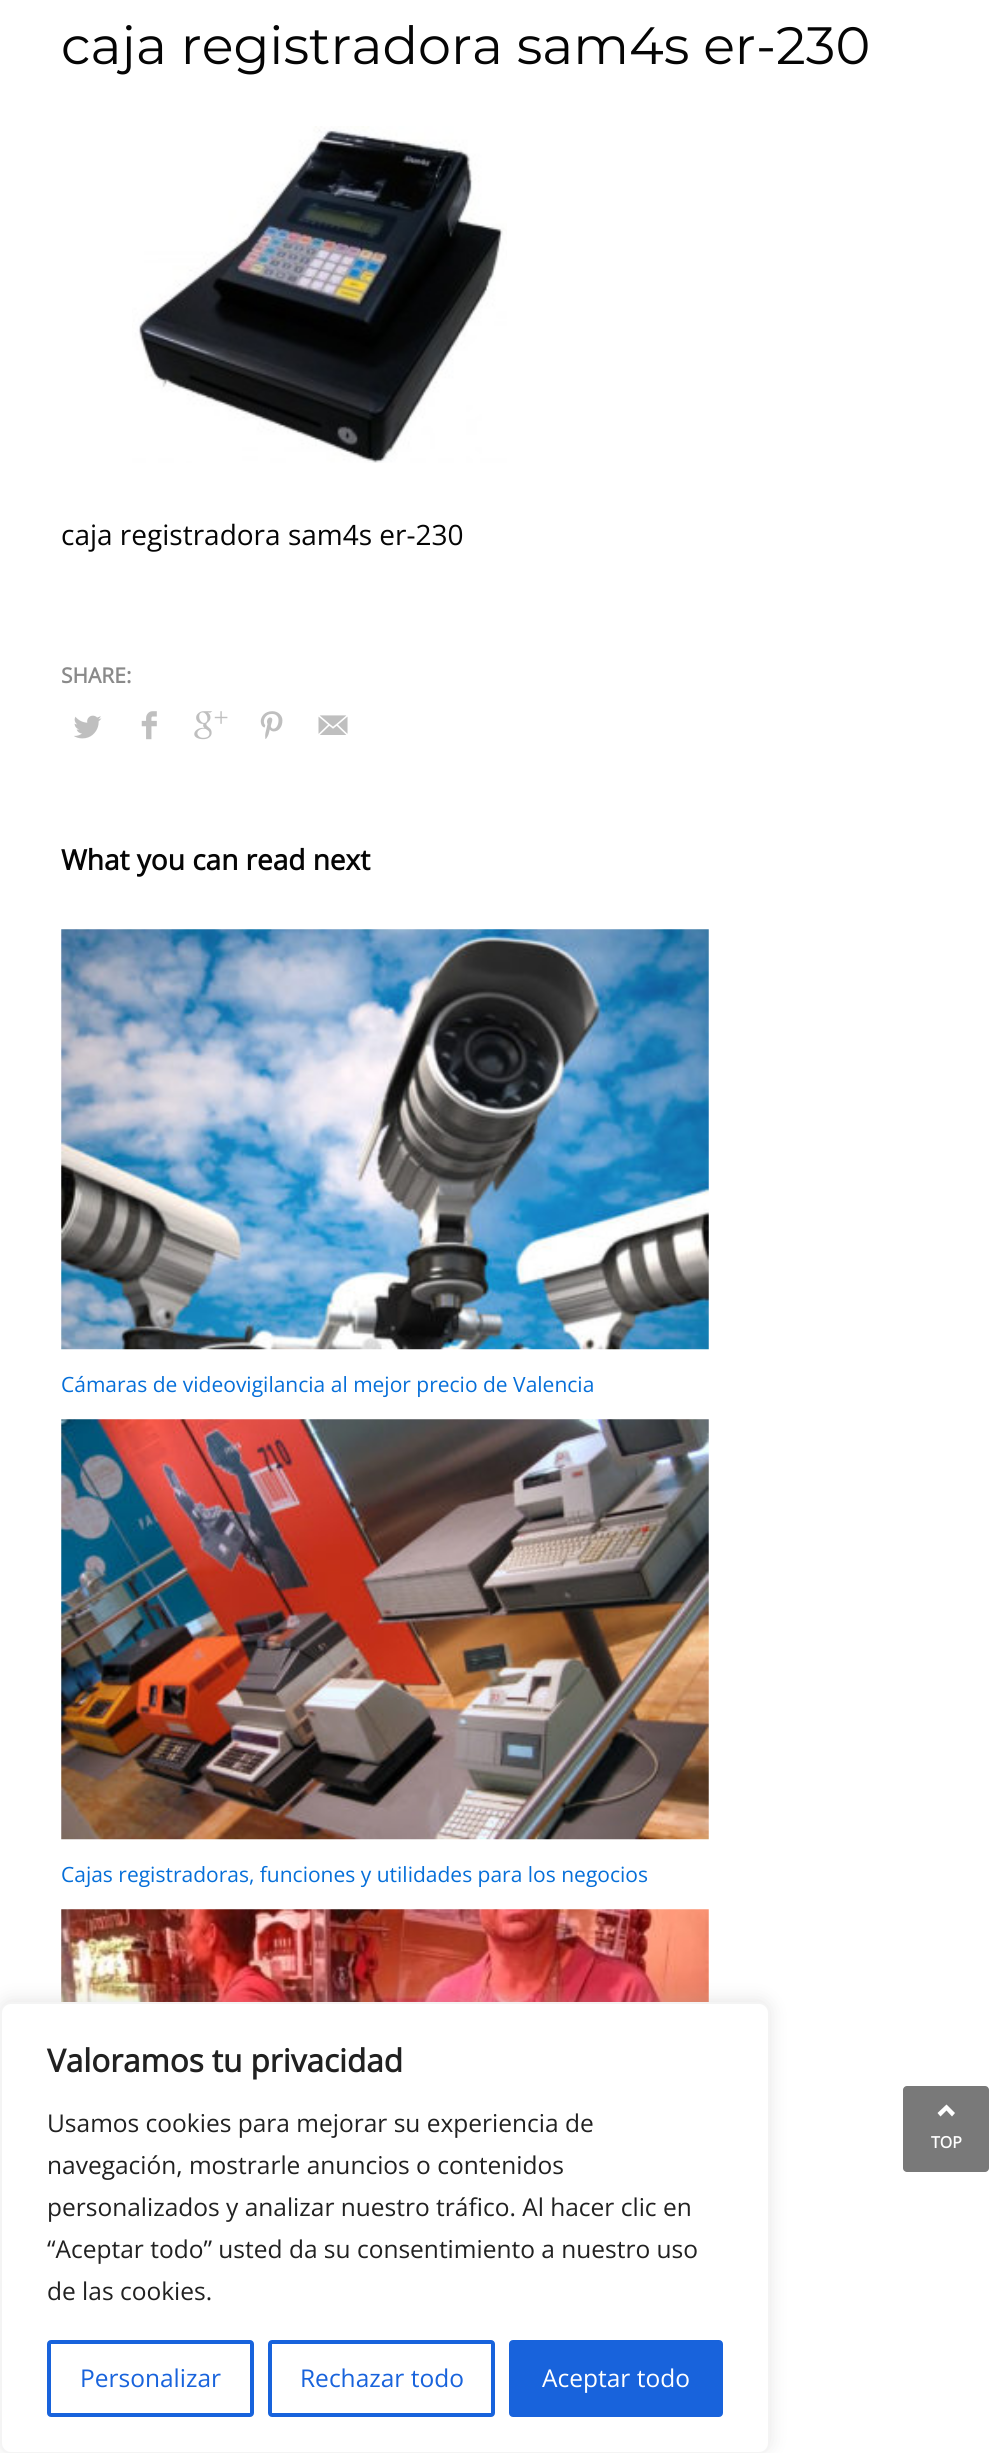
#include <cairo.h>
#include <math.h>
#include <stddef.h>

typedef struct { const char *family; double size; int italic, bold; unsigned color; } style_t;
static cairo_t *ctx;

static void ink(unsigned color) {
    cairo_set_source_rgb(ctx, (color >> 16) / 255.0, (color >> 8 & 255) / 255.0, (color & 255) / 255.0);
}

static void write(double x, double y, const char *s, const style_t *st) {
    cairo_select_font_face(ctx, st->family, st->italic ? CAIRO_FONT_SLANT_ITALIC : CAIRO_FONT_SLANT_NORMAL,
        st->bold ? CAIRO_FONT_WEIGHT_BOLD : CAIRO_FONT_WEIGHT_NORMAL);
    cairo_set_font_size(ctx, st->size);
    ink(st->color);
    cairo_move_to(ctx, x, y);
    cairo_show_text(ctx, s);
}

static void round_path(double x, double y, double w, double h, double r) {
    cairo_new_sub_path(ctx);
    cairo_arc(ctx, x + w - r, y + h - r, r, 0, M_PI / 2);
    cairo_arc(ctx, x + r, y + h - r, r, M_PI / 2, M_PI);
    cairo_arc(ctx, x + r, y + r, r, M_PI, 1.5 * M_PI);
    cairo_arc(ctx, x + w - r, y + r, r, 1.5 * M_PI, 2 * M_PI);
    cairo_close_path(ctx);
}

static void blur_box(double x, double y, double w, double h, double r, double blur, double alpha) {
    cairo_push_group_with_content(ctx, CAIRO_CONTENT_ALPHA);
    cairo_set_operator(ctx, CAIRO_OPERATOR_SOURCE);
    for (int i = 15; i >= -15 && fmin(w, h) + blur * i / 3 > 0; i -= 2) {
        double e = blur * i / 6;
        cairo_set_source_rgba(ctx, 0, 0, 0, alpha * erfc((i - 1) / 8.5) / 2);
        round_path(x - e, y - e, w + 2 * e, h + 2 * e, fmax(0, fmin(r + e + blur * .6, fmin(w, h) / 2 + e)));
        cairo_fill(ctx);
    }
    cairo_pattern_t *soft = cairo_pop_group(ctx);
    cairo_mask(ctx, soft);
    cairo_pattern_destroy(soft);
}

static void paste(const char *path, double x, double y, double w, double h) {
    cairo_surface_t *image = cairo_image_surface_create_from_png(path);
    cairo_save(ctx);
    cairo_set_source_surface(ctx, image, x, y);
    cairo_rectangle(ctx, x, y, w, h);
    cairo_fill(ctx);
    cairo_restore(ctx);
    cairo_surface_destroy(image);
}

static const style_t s1 = {"Montserrat Thin", 52.5, 0, 0, 0x050505};
static const style_t s2 = {"Open Sans", 28, 0, 0, 0x050505};
static const style_t s3 = {"Open Sans", 21, 0, 1, 0x8a8a8a};
static const style_t s4 = {"Open Sans", 28, 0, 1, 0x050505};
static const style_t s5 = {"Open Sans", 21, 0, 0, 0x066fd9};
static const style_t s6 = {"Open Sans", 31.5, 0, 1, 0x212121};
static const style_t s7 = {"Open Sans", 24.5, 0, 0, 0x212121};
static const style_t s8 = {"Open Sans", 24.5, 0, 0, 0x1863dc};
static const style_t s9 = {"Open Sans", 24.5, 0, 0, 0xffffff};
static const style_t s10 = {"Open Sans", 16, 0, 1, 0xffffff};

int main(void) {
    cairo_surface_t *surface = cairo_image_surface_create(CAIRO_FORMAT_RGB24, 1005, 2453);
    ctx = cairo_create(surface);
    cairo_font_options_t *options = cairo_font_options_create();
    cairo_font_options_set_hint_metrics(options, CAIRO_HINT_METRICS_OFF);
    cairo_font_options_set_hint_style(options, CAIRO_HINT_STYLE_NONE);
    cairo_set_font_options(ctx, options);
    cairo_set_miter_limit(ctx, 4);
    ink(0xffffff);
    cairo_paint(ctx);
    write(61, 64, "caja registradora sam4s er-230", &s1);
    paste("pic1.png", 132, 126, 375, 337);
    write(61, 545, "caja registradora sam4s er-230", &s2);
    write(61, 683, "SHARE:", &s3);
    paste("pic2.png", 74, 715, 28, 24);
    paste("pic3.png", 141, 711, 16, 29);
    paste("pic4.png", 194, 711, 34, 29);
    paste("pic5.png", 260, 711, 23, 28);
    paste("pic6.png", 318, 715, 30, 20);
    write(61, 870, "What you can read next", &s4);
    paste("pic7.png", 61, 929, 648, 421);
    write(61, 1392, "Cámaras de videovigilancia al mejor precio de Valencia", &s5);
    paste("pic8.png", 61, 1419, 648, 421);
    write(61, 1882, "Cajas registradoras, funciones y utilidades para los negocios", &s5);
    paste("pic9.png", 61, 1909, 648, 93);
    ink(0xacabab);
    blur_box(0, 2000, 770, 452, 11, 9, 0.3);
    ink(0xffffff);
    round_path(1, 2003, 768, 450, 10);
    cairo_fill_preserve(ctx);
    ink(0xf4f4f4);
    cairo_stroke(ctx);
    write(47, 2072, "Valoramos tu privacidad", &s6);
    write(47, 2132, "Usamos cookies para mejorar su experiencia de", &s7);
    write(47, 2174, "navegación, mostrarle anuncios o contenidos", &s7);
    write(47, 2216, "personalizados y analizar nuestro tráfico. Al hacer clic en", &s7);
    write(47, 2258, "“Aceptar todo” usted da su consentimiento a nuestro uso", &s7);
    write(47, 2300, "de las cookies.", &s7);
    round_path(49, 2342, 203, 73, 2);
    ink(0x1863dc);
    cairo_set_line_width(ctx, 4);
    cairo_stroke(ctx);
    write(80, 2387, "Personalizar", &s8);
    round_path(270, 2342, 223, 73, 2);
    cairo_stroke(ctx);
    write(300, 2387, "Rechazar todo", &s8);
    round_path(511, 2342, 210, 73, 2);
    cairo_fill_preserve(ctx);
    cairo_stroke(ctx);
    write(542, 2387, "Aceptar todo", &s9);
    ink(0x797979);
    round_path(903, 2086, 86, 86, 4);
    cairo_fill(ctx);
    ink(0xffffff);
    cairo_new_path(ctx);
    cairo_move_to(ctx, 946.5, 2104.5);
    cairo_line_to(ctx, 955, 2113);
    cairo_line_to(ctx, 952, 2116.5);
    cairo_line_to(ctx, 946.5, 2110.5);
    cairo_line_to(ctx, 940.5, 2116.5);
    cairo_line_to(ctx, 937.5, 2113);
    cairo_close_path(ctx);
    cairo_fill(ctx);
    write(931, 2148, "TOP", &s10);
    cairo_surface_write_to_png(surface, "screenshot.png");
    cairo_font_options_destroy(options);
    cairo_destroy(ctx);
    cairo_surface_destroy(surface);
    return 0;
}
